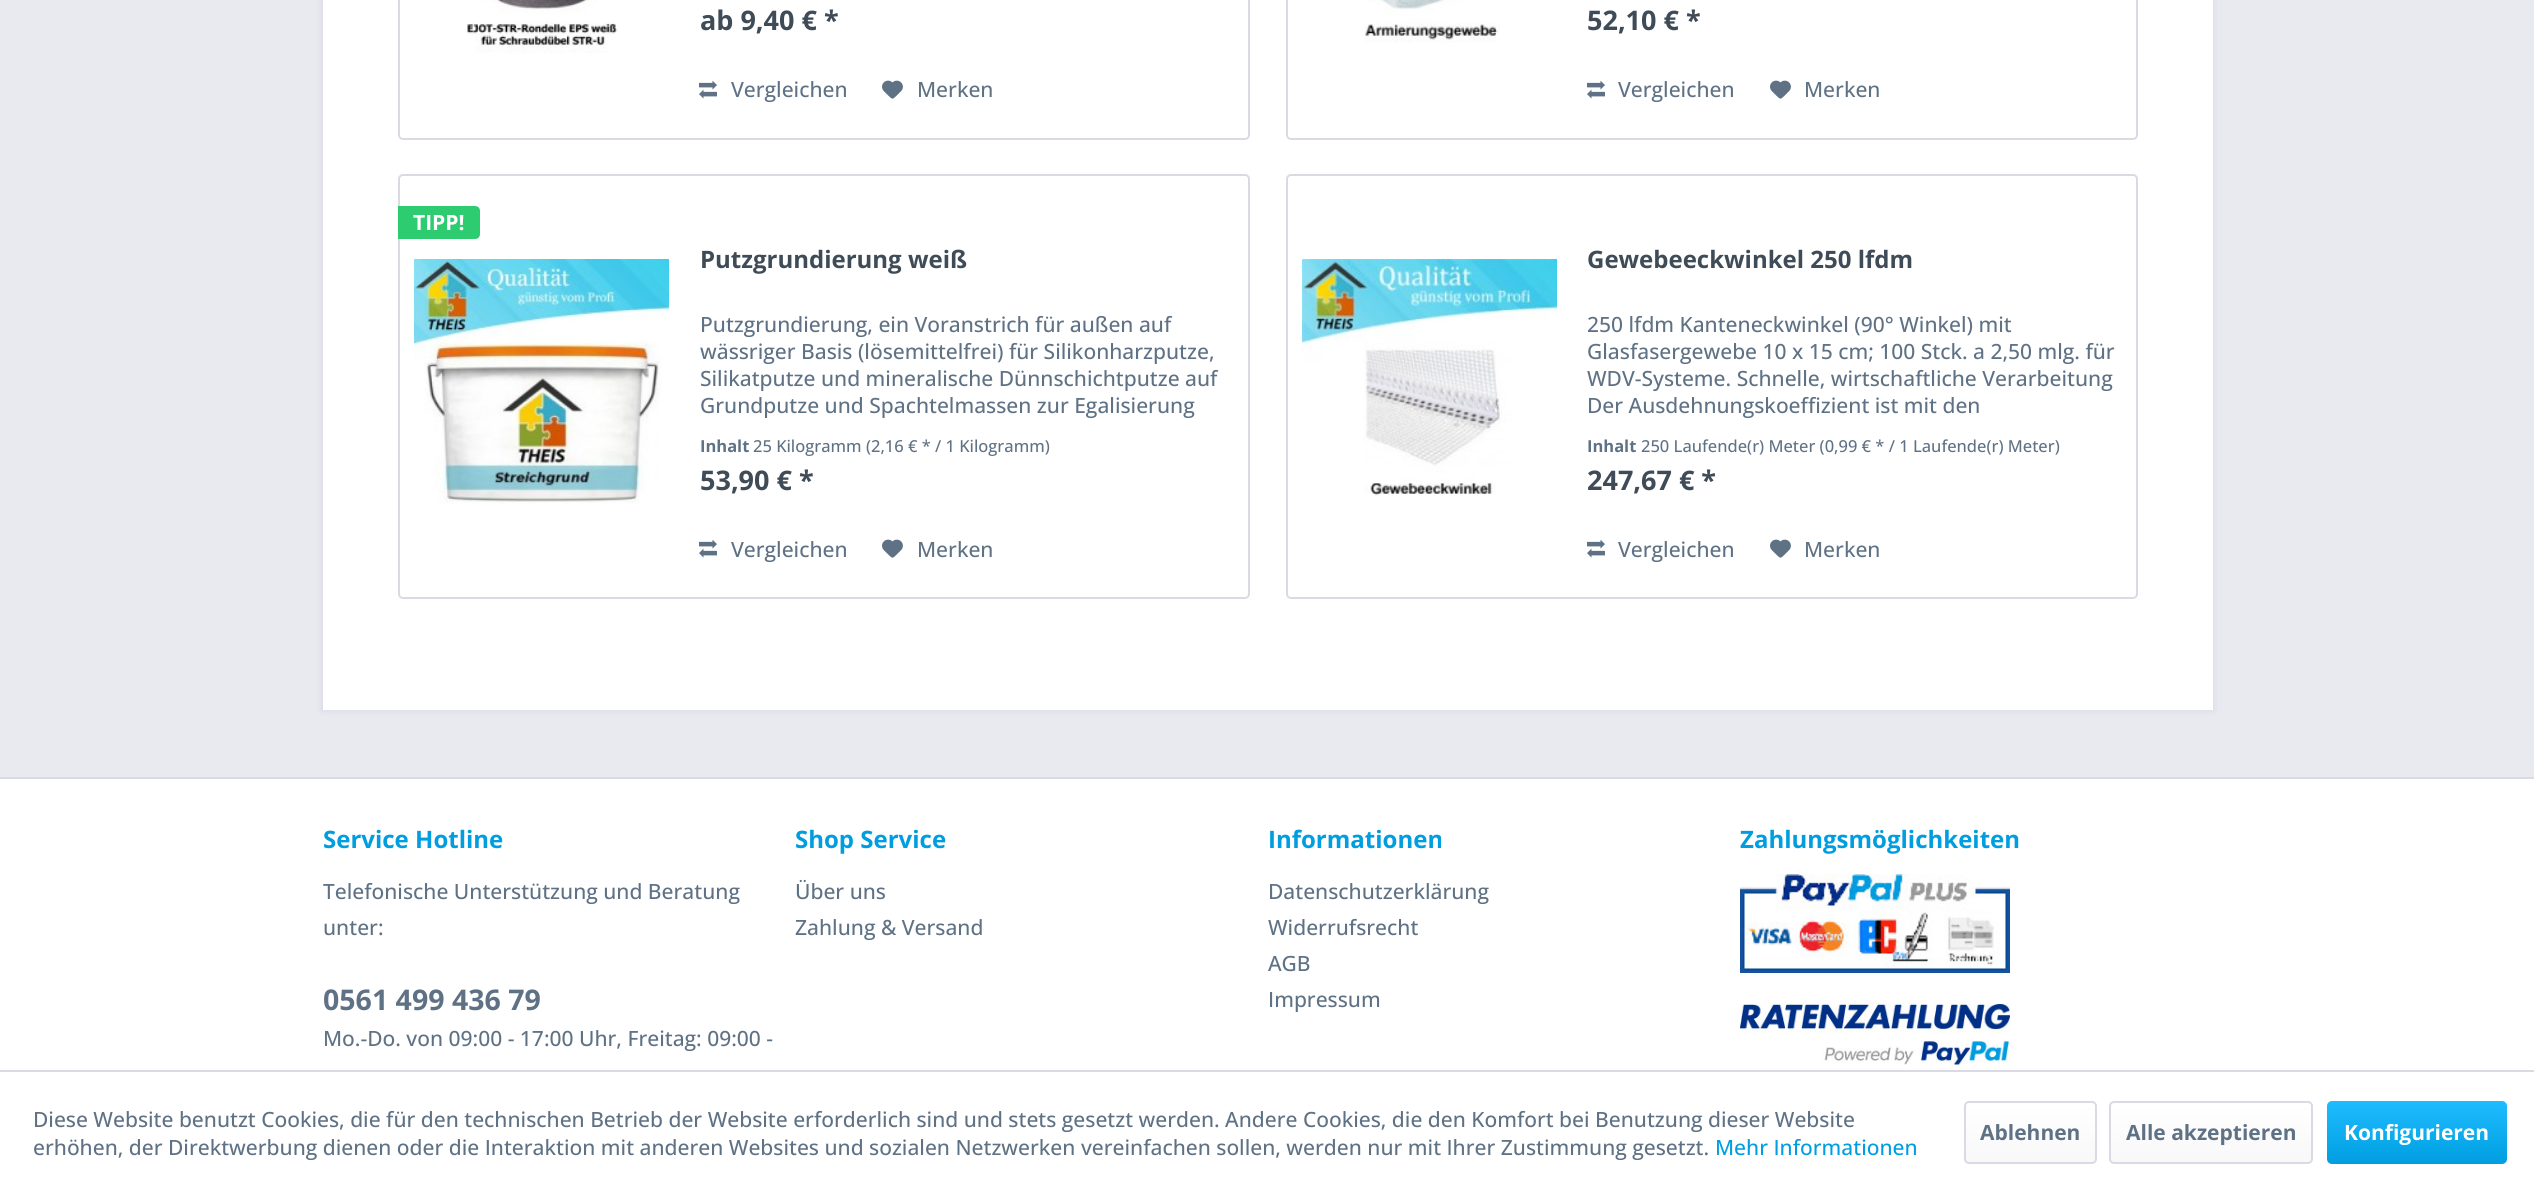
#include <cairo.h>
#include <math.h>
#include <stddef.h>

typedef struct { const char *family; double size; int italic, bold; unsigned color; } style_t;
static cairo_t *ctx;

static void ink(unsigned color) {
    cairo_set_source_rgb(ctx, (color >> 16) / 255.0, (color >> 8 & 255) / 255.0, (color & 255) / 255.0);
}

static void write(double x, double y, const char *s, const style_t *st) {
    cairo_select_font_face(ctx, st->family, st->italic ? CAIRO_FONT_SLANT_ITALIC : CAIRO_FONT_SLANT_NORMAL,
        st->bold ? CAIRO_FONT_WEIGHT_BOLD : CAIRO_FONT_WEIGHT_NORMAL);
    cairo_set_font_size(ctx, st->size);
    ink(st->color);
    cairo_move_to(ctx, x, y);
    cairo_show_text(ctx, s);
}

static void block(double x, double y, double w, double h, unsigned color) {
    ink(color);
    cairo_rectangle(ctx, x, y, w, h);
    cairo_fill(ctx);
}

static void round_path(double x, double y, double w, double h, double r) {
    cairo_new_sub_path(ctx);
    cairo_arc(ctx, x + w - r, y + h - r, r, 0, M_PI / 2);
    cairo_arc(ctx, x + r, y + h - r, r, M_PI / 2, M_PI);
    cairo_arc(ctx, x + r, y + r, r, M_PI, 1.5 * M_PI);
    cairo_arc(ctx, x + w - r, y + r, r, 1.5 * M_PI, 2 * M_PI);
    cairo_close_path(ctx);
}

static void blur_box(double x, double y, double w, double h, double r, double blur, double alpha) {
    cairo_push_group_with_content(ctx, CAIRO_CONTENT_ALPHA);
    cairo_set_operator(ctx, CAIRO_OPERATOR_SOURCE);
    for (int i = 15; i >= -15 && fmin(w, h) + blur * i / 3 > 0; i -= 2) {
        double e = blur * i / 6;
        cairo_set_source_rgba(ctx, 0, 0, 0, alpha * erfc((i - 1) / 8.5) / 2);
        round_path(x - e, y - e, w + 2 * e, h + 2 * e, fmax(0, fmin(r + e + blur * .6, fmin(w, h) / 2 + e)));
        cairo_fill(ctx);
    }
    cairo_pattern_t *soft = cairo_pop_group(ctx);
    cairo_mask(ctx, soft);
    cairo_pattern_destroy(soft);
}

static void paste(const char *path, double x, double y, double w, double h) {
    cairo_surface_t *image = cairo_image_surface_create_from_png(path);
    cairo_save(ctx);
    cairo_set_source_surface(ctx, image, x, y);
    cairo_rectangle(ctx, x, y, w, h);
    cairo_fill(ctx);
    cairo_restore(ctx);
    cairo_surface_destroy(image);
}

static const style_t s1 = {"Open Sans", 27, 0, 1, 0x3f4c58};
static const style_t s2 = {"Open Sans Medium", 21, 0, 0, 0x5f7285};
static const style_t s3 = {"Open Sans", 21, 0, 1, 0xffffff};
static const style_t s4 = {"Open Sans", 24, 0, 1, 0x3f4c58};
static const style_t s5 = {"Open Sans", 16.5, 0, 1, 0x5f7285};
static const style_t s6 = {"Open Sans Medium", 16.5, 0, 0, 0x5f7285};
static const style_t s7 = {"Open Sans", 24, 0, 1, 0x009ee0};
static const style_t s8 = {"Open Sans", 28.5, 0, 1, 0x5f7285};
static const style_t s9 = {"Open Sans Medium", 21, 0, 0, 0x009ee0};
static const style_t s10 = {"Open Sans", 21, 0, 1, 0x5f7285};

int main(void) {
    cairo_surface_t *surface = cairo_image_surface_create(CAIRO_FORMAT_RGB24, 2534, 1193);
    ctx = cairo_create(surface);
    cairo_font_options_t *options = cairo_font_options_create();
    cairo_font_options_set_hint_metrics(options, CAIRO_HINT_METRICS_OFF);
    cairo_font_options_set_hint_style(options, CAIRO_HINT_STYLE_NONE);
    cairo_set_font_options(ctx, options);
    cairo_set_miter_limit(ctx, 4);
    cairo_pattern_t *gradient;
    ink(0xe9e9f0);
    cairo_paint(ctx);
    ink(0xdadae5);
    blur_box(321, -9, 1893, 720, 0, 3, 1);
    block(323, 0, 1890, 710, 0xffffff);
    round_path(399, -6, 850, 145, 4);
    ink(0xdadae5);
    cairo_stroke(ctx);
    paste("pic1.png", 466, 0, 152, 54);
    write(700, 30, "ab 9,40 € *", &s1);
    paste("pic2.png", 699, 80, 18, 19);
    write(731, 97, "Vergleichen", &s2);
    paste("pic3.png", 882, 80, 21, 19);
    write(917, 97, "Merken", &s2);
    round_path(1287, -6, 850, 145, 4);
    ink(0xdadae5);
    cairo_stroke(ctx);
    paste("pic4.png", 1364, 0, 136, 43);
    write(1587, 30, "52,10 € *", &s1);
    paste("pic2.png", 1587, 80, 18, 19);
    write(1618, 97, "Vergleichen", &s2);
    paste("pic3.png", 1770, 80, 21, 19);
    write(1804, 97, "Merken", &s2);
    round_path(399, 175, 850, 423, 4);
    ink(0xdadae5);
    cairo_stroke(ctx);
    ink(0x2ecc71);
    cairo_new_path(ctx);
    cairo_move_to(ctx, 398, 206);
    cairo_line_to(ctx, 475, 206);
    cairo_curve_to(ctx, 478, 206, 480, 208, 480, 211);
    cairo_line_to(ctx, 480, 234);
    cairo_curve_to(ctx, 480, 237, 478, 239, 475, 239);
    cairo_line_to(ctx, 398, 239);
    cairo_close_path(ctx);
    cairo_fill(ctx);
    write(413, 230, "TIPP!", &s3);
    paste("pic5.png", 414, 259, 255, 245);
    write(700, 268, "Putzgrundierung weiß", &s4);
    write(700, 332, "Putzgrundierung, ein Voranstrich für außen auf", &s2);
    write(700, 359, "wässriger Basis (lösemittelfrei) für Silikonharzputze,", &s2);
    write(700, 386, "Silikatputze und mineralische Dünnschichtputze auf", &s2);
    write(700, 413, "Grundputze und Spachtelmassen zur Egalisierung", &s2);
    write(700, 452, "Inhalt", &s5);
    write(753, 452, "25 Kilogramm (2,16 € * / 1 Kilogramm)", &s6);
    write(700, 490, "53,90 € *", &s1);
    paste("pic2.png", 699, 539, 18, 19);
    write(731, 557, "Vergleichen", &s2);
    paste("pic3.png", 882, 539, 21, 19);
    write(917, 557, "Merken", &s2);
    round_path(1287, 175, 850, 423, 4);
    ink(0xdadae5);
    cairo_stroke(ctx);
    paste("pic6.png", 1302, 259, 255, 237);
    write(1587, 268, "Gewebeeckwinkel 250 lfdm", &s4);
    write(1587, 332, "250 lfdm Kanteneckwinkel (90° Winkel) mit", &s2);
    write(1587, 359, "Glasfasergewebe 10 x 15 cm; 100 Stck. a 2,50 mlg. für", &s2);
    write(1587, 386, "WDV-Systeme. Schnelle, wirtschaftliche Verarbeitung", &s2);
    write(1587, 413, "Der Ausdehnungskoeffizient ist mit den", &s2);
    write(1587, 452, "Inhalt", &s5);
    write(1641, 452, "250 Laufende(r) Meter (0,99 € * / 1 Laufende(r) Meter)", &s6);
    write(1587, 490, "247,67 € *", &s1);
    paste("pic2.png", 1587, 539, 18, 19);
    write(1618, 557, "Vergleichen", &s2);
    paste("pic3.png", 1770, 539, 21, 19);
    write(1804, 557, "Merken", &s2);
    block(0, 779, 2534, 291, 0xffffff);
    block(0, 777, 2534, 2, 0xdadae5);
    write(323, 848, "Service Hotline", &s7);
    write(323, 899, "Telefonische Unterstützung und Beratung", &s2);
    write(323, 935, "unter:", &s2);
    write(323, 1010, "0561 499 436 79", &s8);
    write(323, 1046, "Mo.-Do. von 09:00 - 17:00 Uhr, Freitag: 09:00 -", &s2);
    write(795, 848, "Shop Service", &s7);
    write(795, 899, "Über uns", &s2);
    write(795, 935, "Zahlung & Versand", &s2);
    write(1268, 848, "Informationen", &s7);
    write(1268, 899, "Datenschutzerklärung", &s2);
    write(1268, 935, "Widerrufsrecht", &s2);
    write(1268, 971, "AGB", &s2);
    write(1268, 1007, "Impressum", &s2);
    write(1740, 848, "Zahlungsmöglichkeiten", &s7);
    paste("pic7.png", 1740, 874, 270, 99);
    paste("pic8.png", 1740, 1003, 270, 62);
    block(0, 1072, 2534, 121, 0xffffff);
    block(0, 1070, 2534, 2, 0xdadae5);
    write(33, 1127, "Diese Website benutzt Cookies, die für den technischen Betrieb der Website erforderlich sind und stets gesetzt werden. Andere Cookies, die den Komfort bei Benutzung dieser Website", &s2);
    write(33, 1155, "erhöhen, der Direktwerbung dienen oder die Interaktion mit anderen Websites und sozialen Netzwerken vereinfachen sollen, werden nur mit Ihrer Zustimmung gesetzt.", &s2);
    write(1715, 1155, "Mehr Informationen", &s9);
    gradient = cairo_pattern_create_linear(2030, 1103, 2030, 1163);
    cairo_pattern_add_color_stop_rgba(gradient, 0, 1, 1, 1, 1);
    cairo_pattern_add_color_stop_rgba(gradient, 1, 0.973, 0.973, 0.98, 1);
    cairo_set_source(ctx, gradient);
    cairo_pattern_destroy(gradient);
    round_path(1965, 1103, 131, 60, 3);
    cairo_fill(ctx);
    round_path(1965, 1102, 131, 61, 4);
    ink(0xdadae5);
    cairo_stroke(ctx);
    write(1980, 1140, "Ablehnen", &s10);
    gradient = cairo_pattern_create_linear(2211, 1103, 2211, 1163);
    cairo_pattern_add_color_stop_rgba(gradient, 0, 1, 1, 1, 1);
    cairo_pattern_add_color_stop_rgba(gradient, 1, 0.973, 0.973, 0.98, 1);
    cairo_set_source(ctx, gradient);
    cairo_pattern_destroy(gradient);
    round_path(2111, 1103, 201, 60, 3);
    cairo_fill(ctx);
    round_path(2110, 1102, 202, 61, 4);
    ink(0xdadae5);
    cairo_stroke(ctx);
    write(2126, 1140, "Alle akzeptieren", &s10);
    gradient = cairo_pattern_create_linear(2417, 1101, 2417, 1164);
    cairo_pattern_add_color_stop_rgba(gradient, 0, 0.118, 0.741, 1, 1);
    cairo_pattern_add_color_stop_rgba(gradient, 1, 0, 0.62, 0.878, 1);
    cairo_set_source(ctx, gradient);
    cairo_pattern_destroy(gradient);
    round_path(2327, 1101, 180, 63, 5);
    cairo_fill(ctx);
    write(2344, 1140, "Konfigurieren", &s3);
    cairo_surface_write_to_png(surface, "screenshot.png");
    cairo_font_options_destroy(options);
    cairo_destroy(ctx);
    cairo_surface_destroy(surface);
    return 0;
}
